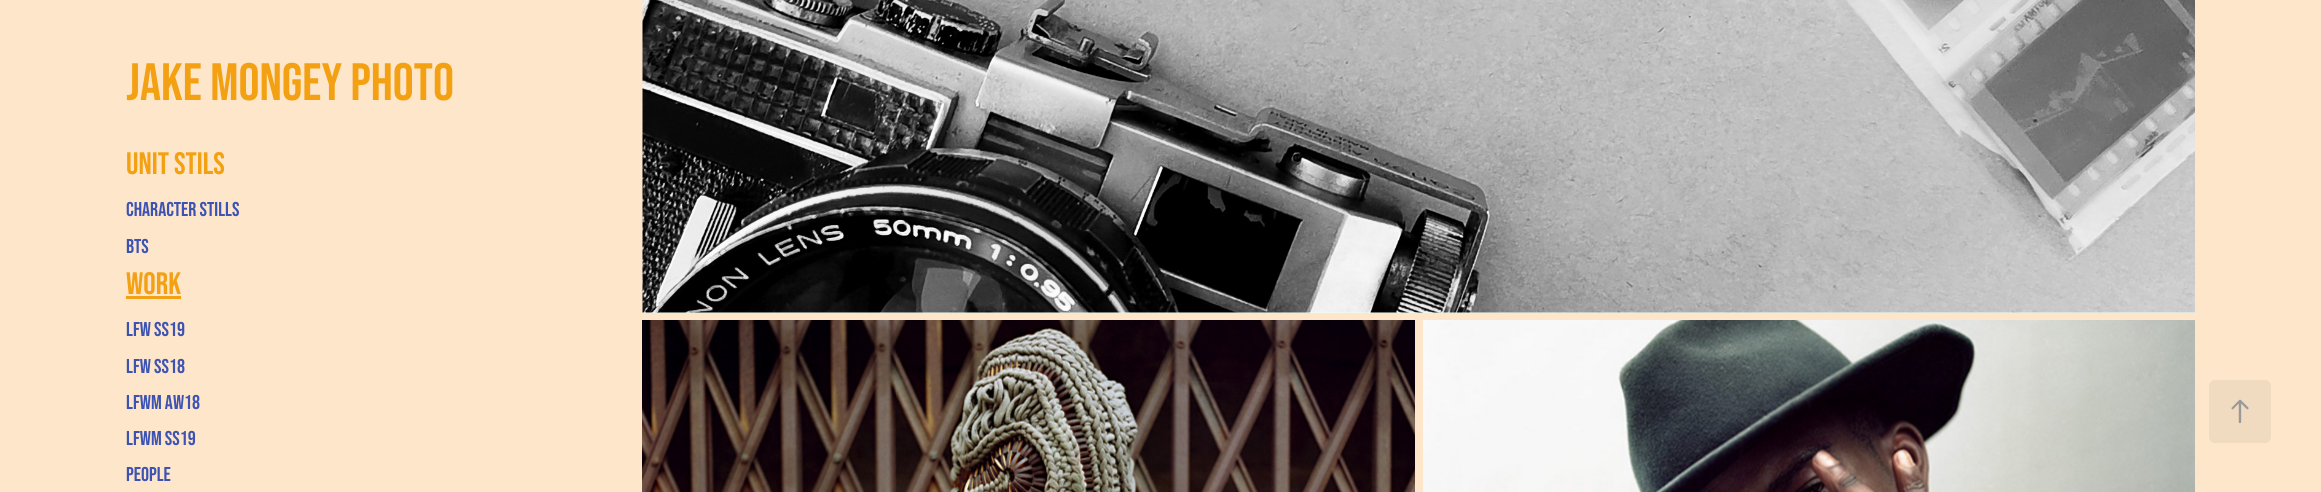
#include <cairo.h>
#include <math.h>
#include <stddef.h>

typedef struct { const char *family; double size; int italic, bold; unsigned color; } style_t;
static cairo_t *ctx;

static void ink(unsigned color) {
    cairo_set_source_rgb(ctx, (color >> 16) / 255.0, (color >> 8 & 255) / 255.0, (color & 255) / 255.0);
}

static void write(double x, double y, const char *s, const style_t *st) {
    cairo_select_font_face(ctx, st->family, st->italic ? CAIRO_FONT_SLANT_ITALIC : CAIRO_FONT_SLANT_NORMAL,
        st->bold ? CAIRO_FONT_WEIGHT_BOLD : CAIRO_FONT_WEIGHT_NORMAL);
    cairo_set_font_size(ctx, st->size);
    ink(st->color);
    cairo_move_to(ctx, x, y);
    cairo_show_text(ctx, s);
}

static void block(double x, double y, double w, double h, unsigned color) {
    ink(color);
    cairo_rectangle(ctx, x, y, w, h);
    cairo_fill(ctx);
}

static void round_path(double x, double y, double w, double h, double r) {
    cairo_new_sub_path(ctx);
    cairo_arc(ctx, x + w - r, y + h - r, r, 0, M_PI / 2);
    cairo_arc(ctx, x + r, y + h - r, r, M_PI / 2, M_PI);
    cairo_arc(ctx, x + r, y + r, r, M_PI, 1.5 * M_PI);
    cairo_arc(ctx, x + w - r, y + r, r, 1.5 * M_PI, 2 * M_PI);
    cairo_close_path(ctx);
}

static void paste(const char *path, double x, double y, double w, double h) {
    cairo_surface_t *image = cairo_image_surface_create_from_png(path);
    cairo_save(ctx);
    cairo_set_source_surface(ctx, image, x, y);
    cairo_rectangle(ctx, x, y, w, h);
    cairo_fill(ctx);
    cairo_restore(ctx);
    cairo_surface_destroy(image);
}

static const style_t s1 = {"Bebas Neue", 52.5, 0, 0, 0xf3a012};
static const style_t s2 = {"Bebas Neue", 31, 0, 0, 0xf3a012};
static const style_t s3 = {"Bebas Neue", 20, 0, 0, 0x3c53b3};

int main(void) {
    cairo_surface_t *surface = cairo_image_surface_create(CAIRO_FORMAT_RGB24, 2321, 492);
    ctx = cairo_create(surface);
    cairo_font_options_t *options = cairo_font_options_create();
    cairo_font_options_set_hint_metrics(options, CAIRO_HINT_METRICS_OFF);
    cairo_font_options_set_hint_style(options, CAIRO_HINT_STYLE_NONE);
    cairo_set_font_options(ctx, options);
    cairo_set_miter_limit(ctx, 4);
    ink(0xfee6ca);
    cairo_paint(ctx);
    write(126, 100, "Jake Mongey Photo", &s1);
    write(126, 174, "Unit Stils", &s2);
    write(126, 216, "Character Stills", &s3);
    write(126, 253, "BTS", &s3);
    write(126, 294, "Work", &s2);
    block(126, 296, 55, 3, 0xf3a012);
    write(126, 336, "LFW SS19", &s3);
    write(126, 373, "LFW SS18", &s3);
    write(126, 409, "LFWM AW18", &s3);
    write(126, 445, "LFWM SS19", &s3);
    write(126, 481, "People", &s3);
    block(643, 312, 1552, 1, 0xf7f8f9);
    paste("pic1.png", 642, 0, 1553, 313);
    paste("pic2.png", 642, 320, 773, 172);
    paste("pic3.png", 1423, 320, 772, 172);
    ink(0xf1dbc0);
    round_path(2209, 380, 62, 63, 6);
    cairo_fill(ctx);
    paste("pic4.png", 2231, 399, 18, 25);
    cairo_surface_write_to_png(surface, "screenshot.png");
    cairo_font_options_destroy(options);
    cairo_destroy(ctx);
    cairo_surface_destroy(surface);
    return 0;
}
